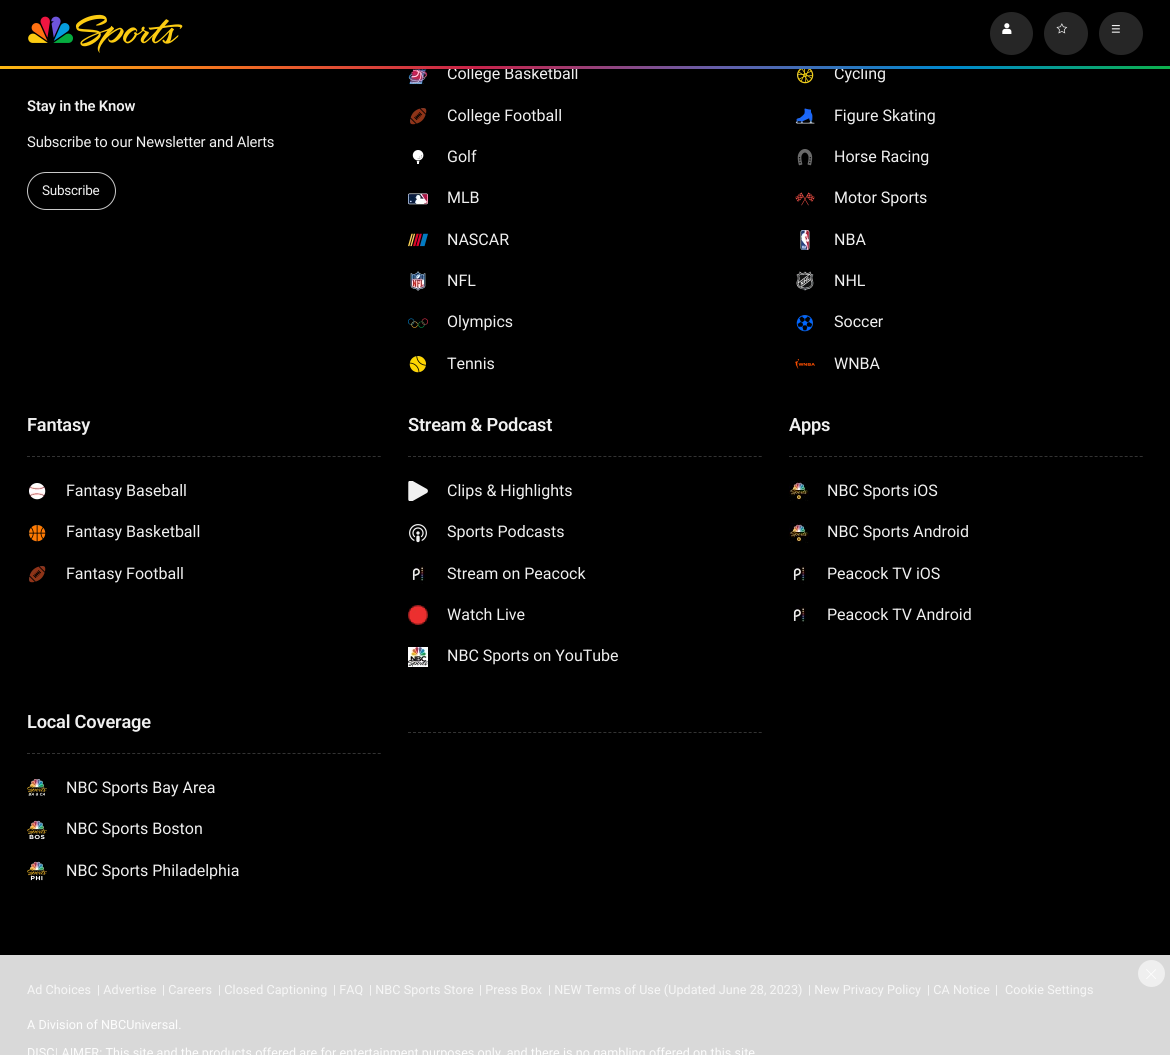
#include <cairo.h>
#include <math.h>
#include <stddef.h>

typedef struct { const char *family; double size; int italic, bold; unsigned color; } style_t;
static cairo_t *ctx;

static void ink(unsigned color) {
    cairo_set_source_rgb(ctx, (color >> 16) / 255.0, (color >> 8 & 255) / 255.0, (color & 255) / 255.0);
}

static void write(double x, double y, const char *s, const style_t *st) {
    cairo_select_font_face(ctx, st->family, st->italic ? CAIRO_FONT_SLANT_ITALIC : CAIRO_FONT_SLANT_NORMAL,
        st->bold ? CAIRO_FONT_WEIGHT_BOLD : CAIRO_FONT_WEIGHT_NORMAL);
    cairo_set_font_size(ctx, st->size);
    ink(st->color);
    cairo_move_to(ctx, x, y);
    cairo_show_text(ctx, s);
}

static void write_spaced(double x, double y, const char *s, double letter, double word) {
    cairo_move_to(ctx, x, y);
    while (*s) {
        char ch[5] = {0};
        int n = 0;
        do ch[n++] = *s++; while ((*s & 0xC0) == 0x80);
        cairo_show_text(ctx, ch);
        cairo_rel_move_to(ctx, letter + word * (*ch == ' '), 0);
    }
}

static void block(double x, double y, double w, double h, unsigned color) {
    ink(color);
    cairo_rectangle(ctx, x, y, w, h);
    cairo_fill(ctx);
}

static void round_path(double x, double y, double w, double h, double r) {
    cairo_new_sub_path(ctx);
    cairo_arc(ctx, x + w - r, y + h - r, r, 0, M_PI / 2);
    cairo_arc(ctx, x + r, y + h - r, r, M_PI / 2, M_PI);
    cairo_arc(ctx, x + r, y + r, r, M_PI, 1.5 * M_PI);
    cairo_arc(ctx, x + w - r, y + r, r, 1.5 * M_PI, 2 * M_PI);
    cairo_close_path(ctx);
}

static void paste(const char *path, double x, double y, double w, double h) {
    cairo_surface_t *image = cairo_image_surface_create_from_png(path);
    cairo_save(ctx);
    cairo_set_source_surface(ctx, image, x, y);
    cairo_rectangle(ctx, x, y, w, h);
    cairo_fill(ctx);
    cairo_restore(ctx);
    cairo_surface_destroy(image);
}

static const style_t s1 = {"Roboto", 16, 0, 0, 0xf0f0f0};

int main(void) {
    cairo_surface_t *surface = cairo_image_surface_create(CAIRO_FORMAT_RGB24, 1170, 1055);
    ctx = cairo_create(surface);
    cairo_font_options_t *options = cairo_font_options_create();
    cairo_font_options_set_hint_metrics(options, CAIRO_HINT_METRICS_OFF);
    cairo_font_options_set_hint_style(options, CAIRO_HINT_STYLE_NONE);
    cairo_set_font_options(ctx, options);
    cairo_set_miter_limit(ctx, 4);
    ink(0x000000);
    cairo_paint(ctx);
    paste("pic1.png", 28, 14, 155, 39);
    ink(0x262626);
    cairo_arc(ctx, 1011.5, 33.5, 21.5, 0, 2 * M_PI);
    cairo_fill(ctx);
    paste("pic2.png", 1002, 23, 10, 11);
    round_path(1044, 12, 44, 43, 21.5);
    cairo_fill(ctx);
    paste("pic3.png", 1056, 23, 12, 11);
    round_path(1099, 12, 44, 43, 21.5);
    cairo_fill(ctx);
    paste("pic4.png", 1111, 25, 9, 8);
    write(447, 79, "College Basketball", &s1);
    write(834, 79, "Cycling", &s1);
    paste("pic5.png", 0, 66, 1170, 3);
    block(0, 955, 1170, 100, 0xd9d9d9);
    cairo_select_font_face(ctx, "Roboto SemiBold", CAIRO_FONT_SLANT_NORMAL, CAIRO_FONT_WEIGHT_NORMAL);
    cairo_set_font_size(ctx, 14.8);
    ink(0xf0f0f0);
    write_spaced(27, 111, "Stay in the Know", -0.15, 0);
    cairo_select_font_face(ctx, "Roboto", CAIRO_FONT_SLANT_NORMAL, CAIRO_FONT_WEIGHT_NORMAL);
    write_spaced(27, 147, "Subscribe to our Newsletter and Alerts", -0.15, 0);
    round_path(27.5, 172.5, 88, 37, 18.5);
    ink(0xc9c9c9);
    cairo_set_line_width(ctx, 1);
    cairo_stroke(ctx);
    cairo_set_font_size(ctx, 13.5);
    ink(0xf0f0f0);
    write_spaced(42, 195, "Subscribe", -0.25, 0);
    paste("pic6.png", 408, 69, 20, 16);
    paste("pic7.png", 797, 69, 17, 15);
    paste("pic8.png", 410, 108, 17, 17);
    write(447, 121, "College Football", &s1);
    paste("pic9.png", 795, 108, 20, 16);
    write(834, 121, "Figure Skating", &s1);
    paste("pic10.png", 412, 150, 12, 14);
    write(447, 162, "Golf", &s1);
    paste("pic11.png", 797, 149, 16, 17);
    write(834, 162, "Horse Racing", &s1);
    paste("pic12.png", 408, 193, 20, 12);
    write(447, 203, "MLB", &s1);
    paste("pic13.png", 795, 192, 20, 14);
    write(834, 203, "Motor Sports", &s1);
    paste("pic14.png", 408, 233, 20, 14);
    write(447, 245, "NASCAR", &s1);
    paste("pic15.png", 800, 230, 10, 20);
    write(834, 245, "NBA", &s1);
    paste("pic16.png", 410, 271, 16, 20);
    write(447, 286, "NFL", &s1);
    paste("pic17.png", 796, 271, 18, 20);
    write(834, 286, "NHL", &s1);
    paste("pic18.png", 408, 318, 20, 10);
    write(447, 327, "Olympics", &s1);
    paste("pic19.png", 796, 315, 17, 17);
    write(834, 327, "Soccer", &s1);
    paste("pic20.png", 409, 356, 17, 17);
    write(447, 369, "Tennis", &s1);
    paste("pic21.png", 795, 359, 20, 10);
    write(834, 369, "WNBA", &s1);
    cairo_new_path(ctx);
    cairo_move_to(ctx, 27, 456.5);
    cairo_line_to(ctx, 381, 456.5);
    ink(0x333333);
    cairo_set_dash(ctx, (double[]){3, 2.01}, 2, 0);
    cairo_stroke(ctx);
    cairo_select_font_face(ctx, "Roboto SemiBold", CAIRO_FONT_SLANT_NORMAL, CAIRO_FONT_WEIGHT_NORMAL);
    cairo_set_font_size(ctx, 18.25);
    ink(0xf0f0f0);
    write_spaced(27, 431, "Fantasy", -0.2, 0);
    paste("pic22.png", 29, 483, 17, 17);
    write(66, 496, "Fantasy Baseball", &s1);
    paste("pic23.png", 29, 525, 17, 17);
    write(66, 537, "Fantasy Basketball", &s1);
    paste("pic8.png", 29, 566, 17, 17);
    write(66, 579, "Fantasy Football", &s1);
    cairo_new_path(ctx);
    cairo_move_to(ctx, 408, 456.5);
    cairo_line_to(ctx, 762, 456.5);
    ink(0x333333);
    cairo_stroke(ctx);
    cairo_select_font_face(ctx, "Roboto SemiBold", CAIRO_FONT_SLANT_NORMAL, CAIRO_FONT_WEIGHT_NORMAL);
    cairo_set_font_size(ctx, 18.25);
    ink(0xf0f0f0);
    write_spaced(408, 431, "Stream & Podcast", -0.2, 0);
    paste("pic24.png", 408, 481, 20, 20);
    write(447, 496, "Clips & Highlights", &s1);
    paste("pic25.png", 409, 524, 18, 19);
    write(447, 537, "Sports Podcasts", &s1);
    paste("pic26.png", 412, 564, 13, 20);
    write(447, 579, "Stream on Peacock", &s1);
    paste("pic27.png", 408, 605, 20, 20);
    write(447, 620, "Watch Live", &s1);
    paste("pic28.png", 408, 647, 20, 20);
    write(447, 661, "NBC Sports on YouTube", &s1);
    cairo_new_path(ctx);
    cairo_move_to(ctx, 789, 456.5);
    cairo_line_to(ctx, 1143, 456.5);
    ink(0x333333);
    cairo_stroke(ctx);
    cairo_select_font_face(ctx, "Roboto SemiBold", CAIRO_FONT_SLANT_NORMAL, CAIRO_FONT_WEIGHT_NORMAL);
    cairo_set_font_size(ctx, 18.25);
    ink(0xf0f0f0);
    write_spaced(789, 431, "Apps", -0.2, 0);
    paste("pic29.png", 789, 481, 20, 20);
    write(827, 496, "NBC Sports iOS", &s1);
    paste("pic29.png", 789, 523, 20, 20);
    write(827, 537, "NBC Sports Android", &s1);
    paste("pic26.png", 793, 564, 13, 20);
    write(827, 579, "Peacock TV iOS", &s1);
    paste("pic26.png", 793, 605, 13, 20);
    write(827, 620, "Peacock TV Android", &s1);
    cairo_new_path(ctx);
    cairo_move_to(ctx, 27, 753.5);
    cairo_line_to(ctx, 381, 753.5);
    ink(0x333333);
    cairo_stroke(ctx);
    cairo_select_font_face(ctx, "Roboto SemiBold", CAIRO_FONT_SLANT_NORMAL, CAIRO_FONT_WEIGHT_NORMAL);
    cairo_set_font_size(ctx, 18.25);
    ink(0xf0f0f0);
    write_spaced(27, 728, "Local Coverage", -0.2, 0);
    paste("pic30.png", 27, 779, 20, 17);
    write(66, 793, "NBC Sports Bay Area", &s1);
    paste("pic31.png", 27, 820, 20, 20);
    write(66, 834, "NBC Sports Boston", &s1);
    paste("pic32.png", 27, 861, 20, 20);
    write(66, 876, "NBC Sports Philadelphia", &s1);
    cairo_new_path(ctx);
    cairo_move_to(ctx, 408, 732.5);
    cairo_line_to(ctx, 762, 732.5);
    ink(0x333333);
    cairo_stroke(ctx);
    cairo_set_font_size(ctx, 12.57);
    ink(0xf7f7f7);
    write_spaced(27, 994, "Ad Choices", 0.06, 0);
    write_spaced(97, 994, "| Advertise", 0.06, 0);
    write_spaced(162, 994, "| Careers", 0.06, 0);
    write_spaced(218, 994, "| Closed Captioning", 0.06, 0);
    write_spaced(333, 994, "| FAQ", 0.06, 0);
    write_spaced(369, 994, "| NBC Sports Store", 0.06, 0);
    write_spaced(479, 994, "| Press Box", 0.06, 0);
    write_spaced(548, 994, "| NEW Terms of Use (Updated June 28, 2023)", 0.06, 0);
    write_spaced(808, 994, "| New Privacy Policy", 0.06, 0);
    write_spaced(927, 994, "| CA Notice", 0.06, 0);
    write_spaced(995, 994, "|", 0.06, 0);
    write_spaced(1005, 994, "Cookie Settings", 0.06, 0);
    ink(0xfdfdfd);
    write_spaced(27, 1029, "A Division of NBCUniversal.", 0.06, 0);
    write_spaced(27, 1057, "DISCLAIMER: This site and the products offered are for entertainment purposes only, and there is no gambling offered on this site", 0.06, 0);
    ink(0xefefef);
    cairo_new_path(ctx);
    cairo_arc(ctx, 1151.5, 973.5, 13.5, 0, 2 * M_PI);
    cairo_fill(ctx);
    paste("pic33.png", 1146, 969, 10, 10);
    cairo_surface_write_to_png(surface, "screenshot.png");
    cairo_font_options_destroy(options);
    cairo_destroy(ctx);
    cairo_surface_destroy(surface);
    return 0;
}
